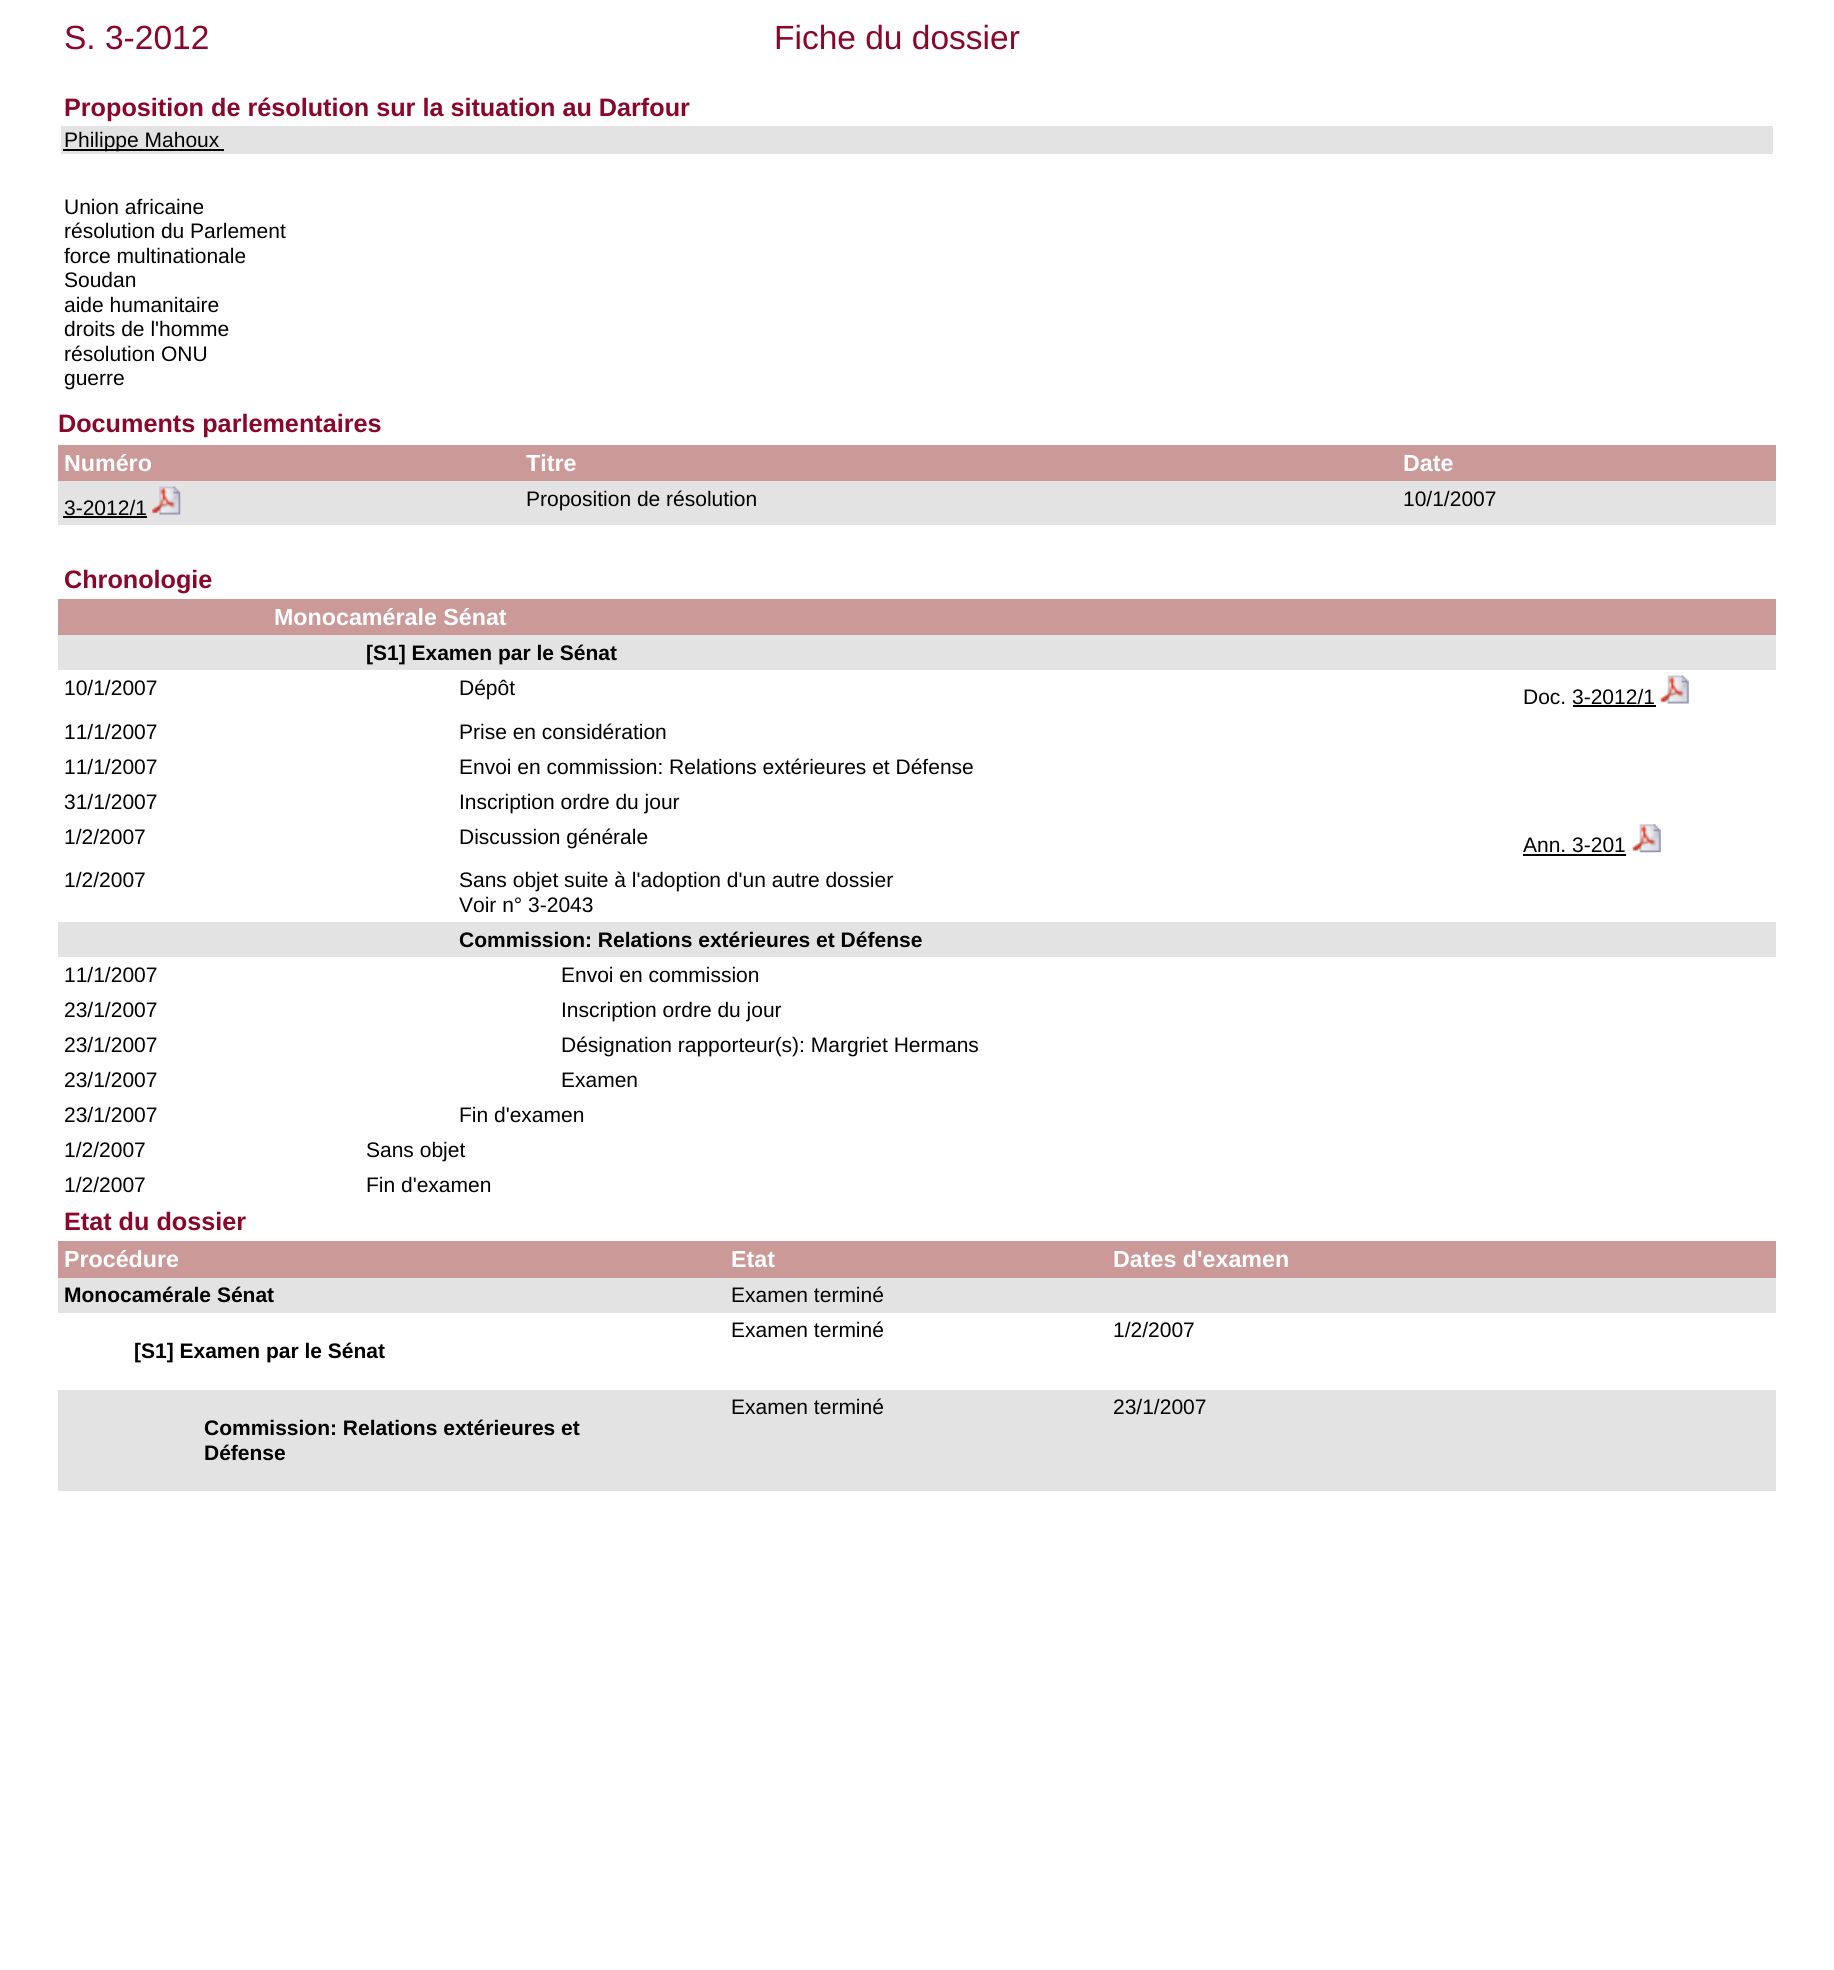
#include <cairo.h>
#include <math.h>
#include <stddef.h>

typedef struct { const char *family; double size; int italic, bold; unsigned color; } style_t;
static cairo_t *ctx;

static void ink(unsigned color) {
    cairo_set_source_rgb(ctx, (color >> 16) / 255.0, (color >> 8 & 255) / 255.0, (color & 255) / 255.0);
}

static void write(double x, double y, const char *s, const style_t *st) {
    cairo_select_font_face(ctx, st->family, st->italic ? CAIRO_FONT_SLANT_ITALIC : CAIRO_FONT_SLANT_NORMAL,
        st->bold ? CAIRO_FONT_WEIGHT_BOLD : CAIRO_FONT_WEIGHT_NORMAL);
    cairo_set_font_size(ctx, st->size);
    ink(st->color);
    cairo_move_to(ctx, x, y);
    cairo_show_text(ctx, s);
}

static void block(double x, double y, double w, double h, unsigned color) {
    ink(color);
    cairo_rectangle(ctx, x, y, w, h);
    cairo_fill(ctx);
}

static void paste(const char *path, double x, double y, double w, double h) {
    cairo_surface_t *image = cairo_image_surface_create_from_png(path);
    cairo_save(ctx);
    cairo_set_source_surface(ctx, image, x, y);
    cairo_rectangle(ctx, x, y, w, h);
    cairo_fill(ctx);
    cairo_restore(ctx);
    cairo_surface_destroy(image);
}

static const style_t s1 = {"Liberation Sans", 33.5, 0, 0, 0x8a062b};
static const style_t s2 = {"Liberation Sans", 25.2, 0, 1, 0x8a062b};
static const style_t s3 = {"Liberation Sans", 21, 0, 0, 0x000000};
static const style_t s4 = {"Liberation Sans", 23.25, 0, 1, 0xffffff};
static const style_t s5 = {"Liberation Sans", 21, 0, 1, 0x000000};

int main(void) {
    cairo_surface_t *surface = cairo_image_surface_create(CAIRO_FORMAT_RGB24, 1834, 1970);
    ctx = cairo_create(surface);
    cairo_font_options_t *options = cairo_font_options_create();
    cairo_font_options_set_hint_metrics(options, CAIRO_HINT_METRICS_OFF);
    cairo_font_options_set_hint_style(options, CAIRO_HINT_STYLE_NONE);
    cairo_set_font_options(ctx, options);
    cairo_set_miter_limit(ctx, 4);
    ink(0xffffff);
    cairo_paint(ctx);
    write(64, 49, "S. 3-2012", &s1);
    write(774, 49, "Fiche du dossier", &s1);
    write(64, 116, "Proposition de résolution sur la situation au Darfour", &s2);
    block(61, 126, 1712, 28, 0xe3e3e3);
    block(63, 149, 161, 2, 0x000000);
    write(64, 147, "Philippe Mahoux", &s3);
    write(64, 214, "Union africaine", &s3);
    write(64, 238, "résolution du Parlement", &s3);
    write(64, 263, "force multinationale", &s3);
    write(64, 287, "Soudan", &s3);
    write(64, 312, "aide humanitaire", &s3);
    write(64, 336, "droits de l'homme", &s3);
    write(64, 361, "résolution ONU", &s3);
    write(64, 385, "guerre", &s3);
    write(58, 432, "Documents parlementaires", &s2);
    block(58, 445, 1718, 36, 0xcc9999);
    write(64, 471, "Numéro", &s4);
    write(526, 471, "Titre", &s4);
    write(1403, 471, "Date", &s4);
    block(58, 481, 1718, 44, 0xe3e3e3);
    write(64, 515, "3-2012/1", &s3);
    block(63, 516, 84, 2, 0x000000);
    paste("pic1.png", 152, 486, 29, 29);
    write(526, 506, "Proposition de résolution", &s3);
    write(1403, 506, "10/1/2007", &s3);
    write(64, 588, "Chronologie", &s2);
    block(58, 599, 1718, 36, 0xcc9999);
    write(274, 625, "Monocamérale Sénat", &s4);
    block(58, 635, 1718, 35, 0xe3e3e3);
    write(366, 660, "[S1] Examen par le Sénat", &s5);
    write(64, 695, "10/1/2007", &s3);
    write(459, 695, "Dépôt", &s3);
    write(1523, 704, "Doc. 3-2012/1", &s3);
    paste("pic2.png", 1660, 675, 29, 29);
    block(1573, 705, 83, 2, 0x000000);
    write(64, 739, "11/1/2007", &s3);
    write(459, 739, "Prise en considération", &s3);
    write(64, 774, "11/1/2007", &s3);
    write(459, 774, "Envoi en commission: Relations extérieures et Défense", &s3);
    write(64, 809, "31/1/2007", &s3);
    write(459, 809, "Inscription ordre du jour", &s3);
    write(64, 844, "1/2/2007", &s3);
    write(459, 844, "Discussion générale", &s3);
    write(1523, 852, "Ann. 3-201", &s3);
    block(1523, 854, 103, 2, 0x000000);
    paste("pic3.png", 1632, 824, 29, 29);
    write(64, 887, "1/2/2007", &s3);
    write(459, 887, "Sans objet suite à l'adoption d'un autre dossier", &s3);
    write(459, 912, "Voir n° 3-2043", &s3);
    block(58, 922, 1718, 35, 0xe3e3e3);
    write(459, 947, "Commission: Relations extérieures et Défense", &s5);
    write(64, 982, "11/1/2007", &s3);
    write(561, 982, "Envoi en commission", &s3);
    write(64, 1017, "23/1/2007", &s3);
    write(561, 1017, "Inscription ordre du jour", &s3);
    write(64, 1052, "23/1/2007", &s3);
    write(561, 1052, "Désignation rapporteur(s): Margriet Hermans", &s3);
    write(64, 1087, "23/1/2007", &s3);
    write(561, 1087, "Examen", &s3);
    write(64, 1122, "23/1/2007", &s3);
    write(459, 1122, "Fin d'examen", &s3);
    write(64, 1157, "1/2/2007", &s3);
    write(366, 1157, "Sans objet", &s3);
    write(64, 1192, "1/2/2007", &s3);
    write(366, 1192, "Fin d'examen", &s3);
    write(64, 1230, "Etat du dossier", &s2);
    block(58, 1241, 1718, 37, 0xcc9999);
    write(64, 1267, "Procédure", &s4);
    write(731, 1267, "Etat", &s4);
    write(1113, 1267, "Dates d'examen", &s4);
    block(58, 1278, 1718, 35, 0xe3e3e3);
    write(64, 1302, "Monocamérale Sénat", &s5);
    write(731, 1302, "Examen terminé", &s3);
    write(731, 1337, "Examen terminé", &s3);
    write(1113, 1337, "1/2/2007", &s3);
    write(134, 1358, "[S1] Examen par le Sénat", &s5);
    block(58, 1390, 1718, 101, 0xe3e3e3);
    write(731, 1414, "Examen terminé", &s3);
    write(1113, 1414, "23/1/2007", &s3);
    write(204, 1435, "Commission: Relations extérieures et", &s5);
    write(204, 1460, "Défense", &s5);
    cairo_surface_write_to_png(surface, "screenshot.png");
    cairo_font_options_destroy(options);
    cairo_destroy(ctx);
    cairo_surface_destroy(surface);
    return 0;
}
